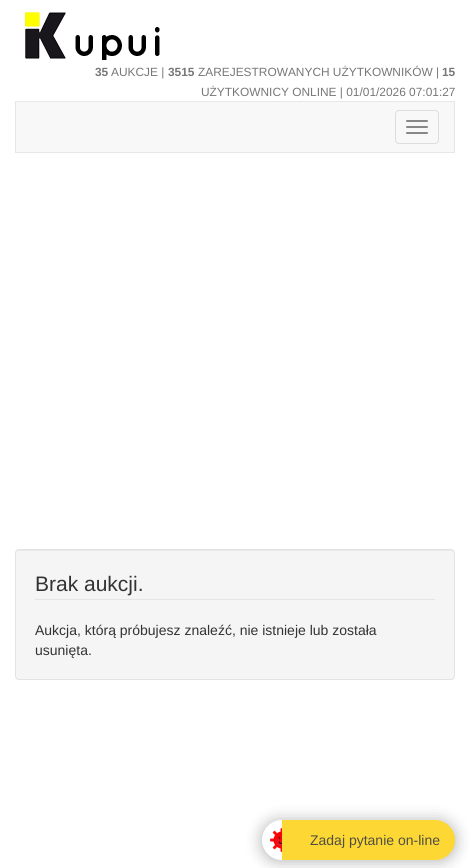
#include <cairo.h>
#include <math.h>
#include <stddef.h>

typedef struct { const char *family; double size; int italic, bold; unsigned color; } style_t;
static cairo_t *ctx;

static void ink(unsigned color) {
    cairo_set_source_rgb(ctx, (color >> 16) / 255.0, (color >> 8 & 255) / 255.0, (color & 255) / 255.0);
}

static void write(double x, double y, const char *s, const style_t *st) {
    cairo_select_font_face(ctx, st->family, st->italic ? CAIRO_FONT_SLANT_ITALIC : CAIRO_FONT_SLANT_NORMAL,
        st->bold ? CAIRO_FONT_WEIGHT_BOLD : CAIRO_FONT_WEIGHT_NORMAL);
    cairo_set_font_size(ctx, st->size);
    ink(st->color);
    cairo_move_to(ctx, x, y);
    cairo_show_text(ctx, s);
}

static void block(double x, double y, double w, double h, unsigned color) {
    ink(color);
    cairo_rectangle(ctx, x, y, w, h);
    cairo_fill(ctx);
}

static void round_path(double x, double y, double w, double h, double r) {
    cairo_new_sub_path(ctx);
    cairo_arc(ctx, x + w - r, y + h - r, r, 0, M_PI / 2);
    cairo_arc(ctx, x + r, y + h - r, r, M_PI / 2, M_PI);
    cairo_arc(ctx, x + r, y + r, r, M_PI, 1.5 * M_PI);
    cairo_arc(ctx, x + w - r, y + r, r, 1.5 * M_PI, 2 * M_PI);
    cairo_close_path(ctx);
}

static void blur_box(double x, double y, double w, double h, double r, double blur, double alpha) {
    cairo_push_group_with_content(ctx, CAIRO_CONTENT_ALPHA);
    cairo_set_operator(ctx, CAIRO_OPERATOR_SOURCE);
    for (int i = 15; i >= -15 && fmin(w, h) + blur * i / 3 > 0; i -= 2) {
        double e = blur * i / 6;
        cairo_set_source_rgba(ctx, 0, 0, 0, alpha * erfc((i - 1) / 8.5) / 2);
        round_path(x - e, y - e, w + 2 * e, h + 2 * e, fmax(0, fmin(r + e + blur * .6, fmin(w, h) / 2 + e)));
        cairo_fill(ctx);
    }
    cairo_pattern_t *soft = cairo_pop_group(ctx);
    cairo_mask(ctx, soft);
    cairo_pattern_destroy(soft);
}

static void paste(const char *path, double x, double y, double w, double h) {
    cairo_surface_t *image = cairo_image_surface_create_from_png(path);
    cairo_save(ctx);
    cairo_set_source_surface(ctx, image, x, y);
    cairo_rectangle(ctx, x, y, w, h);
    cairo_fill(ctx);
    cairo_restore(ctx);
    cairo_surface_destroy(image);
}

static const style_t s1 = {"Liberation Sans", 11.9, 0, 1, 0x777777};
static const style_t s2 = {"Liberation Sans", 11.9, 0, 0, 0x777777};
static const style_t s3 = {"Liberation Sans", 21, 0, 0, 0x333333};
static const style_t s4 = {"Liberation Sans", 14, 0, 0, 0x333333};
static const style_t s5 = {"Liberation Sans", 14, 0, 0, 0x504e3f};

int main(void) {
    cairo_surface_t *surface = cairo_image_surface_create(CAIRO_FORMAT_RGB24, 470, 868);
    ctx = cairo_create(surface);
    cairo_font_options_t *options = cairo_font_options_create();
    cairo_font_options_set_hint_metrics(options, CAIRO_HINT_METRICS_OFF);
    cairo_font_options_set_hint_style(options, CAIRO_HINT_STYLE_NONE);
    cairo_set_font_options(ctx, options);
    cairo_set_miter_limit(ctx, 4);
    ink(0xffffff);
    cairo_paint(ctx);
    paste("pic1.png", 25, 12, 135, 48);
    write(95, 76, "35", &s1);
    write(111, 76, "AUKCJE |", &s2);
    write(168, 76, "3515", &s1);
    write(198, 76, "ZAREJESTROWANYCH UŻYTKOWNIKÓW |", &s2);
    write(442, 76, "15", &s1);
    write(201, 96, "UŻYTKOWNICY ONLINE | 01/01/2026 07:01:27", &s2);
    ink(0xf8f8f8);
    cairo_rectangle(ctx, 15.5, 101.5, 439, 51);
    cairo_fill_preserve(ctx);
    ink(0xe7e7e7);
    cairo_set_line_width(ctx, 1);
    cairo_stroke(ctx);
    round_path(395.5, 110.5, 43, 33, 3.5);
    ink(0xdddddd);
    cairo_stroke(ctx);
    ink(0x888888);
    round_path(406, 120, 22, 2, 1);
    cairo_fill(ctx);
    round_path(406, 126, 22, 2, 1);
    cairo_fill(ctx);
    round_path(406, 132, 22, 2, 1);
    cairo_fill(ctx);
    ink(0xf5f5f5);
    round_path(15, 549, 440, 131, 4);
    cairo_fill(ctx);
    ink(0xe9e9e9);
    cairo_new_path(ctx);
    cairo_move_to(ctx, 19, 551);
    cairo_line_to(ctx, 451, 551);
    cairo_curve_to(ctx, 453, 551, 454, 552, 454, 554);
    cairo_curve_to(ctx, 454, 552, 453, 550, 451, 550);
    cairo_line_to(ctx, 18, 550);
    cairo_line_to(ctx, 16, 552);
    cairo_line_to(ctx, 16, 554);
    cairo_curve_to(ctx, 16, 552, 17, 551, 19, 551);
    cairo_close_path(ctx);
    cairo_fill(ctx);
    round_path(15.5, 549.5, 439, 130, 3.5);
    ink(0xe3e3e3);
    cairo_stroke(ctx);
    block(35, 599, 400, 1, 0xe5e5e5);
    write(35, 591, "Brak aukcji.", &s3);
    write(35, 635, "Aukcja, którą próbujesz znaleźć, nie istnieje lub została", &s4);
    write(35, 655, "usunięta.", &s4);
    ink(0x000000);
    blur_box(262, 821, 193, 40, 20, 8, 0.3);
    ink(0xffffff);
    cairo_arc(ctx, 282, 840, 20, 0, 2 * M_PI);
    cairo_fill(ctx);
    paste("pic2.png", 270, 828, 12, 24);
    ink(0xfdd835);
    cairo_new_path(ctx);
    cairo_move_to(ctx, 282, 820);
    cairo_line_to(ctx, 435, 820);
    cairo_curve_to(ctx, 446, 820, 455, 829, 455, 840);
    cairo_curve_to(ctx, 455, 851, 446, 860, 435, 860);
    cairo_line_to(ctx, 282, 860);
    cairo_close_path(ctx);
    cairo_fill(ctx);
    write(310, 845, "Zadaj pytanie on-line", &s5);
    cairo_surface_write_to_png(surface, "screenshot.png");
    cairo_font_options_destroy(options);
    cairo_destroy(ctx);
    cairo_surface_destroy(surface);
    return 0;
}
